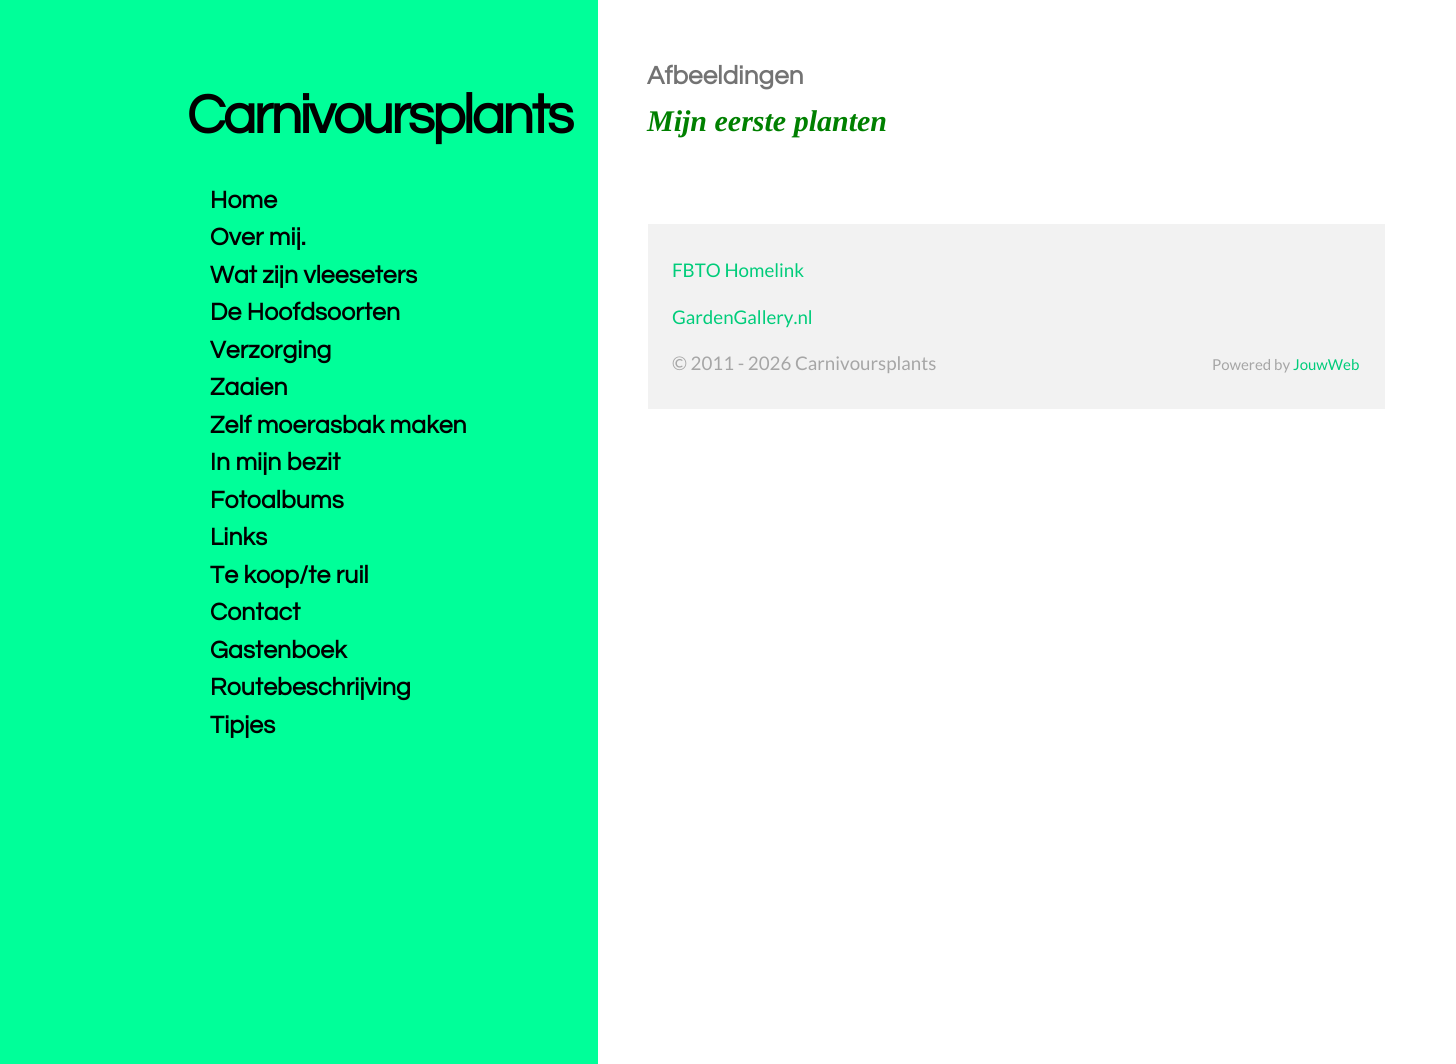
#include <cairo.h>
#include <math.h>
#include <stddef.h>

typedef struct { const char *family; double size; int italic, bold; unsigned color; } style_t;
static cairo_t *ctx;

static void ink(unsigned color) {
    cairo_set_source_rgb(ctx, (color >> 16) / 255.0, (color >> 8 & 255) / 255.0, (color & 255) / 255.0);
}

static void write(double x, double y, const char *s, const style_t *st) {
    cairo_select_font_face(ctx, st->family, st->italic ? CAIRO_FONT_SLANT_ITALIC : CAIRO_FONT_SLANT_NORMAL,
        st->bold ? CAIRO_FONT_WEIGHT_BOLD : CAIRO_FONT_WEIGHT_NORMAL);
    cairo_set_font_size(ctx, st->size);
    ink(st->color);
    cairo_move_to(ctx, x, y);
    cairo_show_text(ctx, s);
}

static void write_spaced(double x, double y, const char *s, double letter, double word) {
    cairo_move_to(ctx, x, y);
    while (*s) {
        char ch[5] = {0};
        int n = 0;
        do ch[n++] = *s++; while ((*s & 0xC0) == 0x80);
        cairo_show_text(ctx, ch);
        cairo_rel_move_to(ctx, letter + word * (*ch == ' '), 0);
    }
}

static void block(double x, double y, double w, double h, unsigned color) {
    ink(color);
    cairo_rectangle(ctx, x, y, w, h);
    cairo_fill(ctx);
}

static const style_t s1 = {"Questrial", 25, 0, 1, 0x000000};
static const style_t s2 = {"Questrial", 26.25, 0, 1, 0x737373};
static const style_t s3 = {"Liberation Serif", 30, 1, 1, 0x008000};
static const style_t s4 = {"Lato", 18.75, 0, 0, 0x00cc7a};
static const style_t s5 = {"Lato", 18.75, 0, 0, 0xa6a6a6};
static const style_t s6 = {"Lato", 15, 0, 0, 0xa6a6a6};
static const style_t s7 = {"Lato", 15, 0, 0, 0x00cc7a};

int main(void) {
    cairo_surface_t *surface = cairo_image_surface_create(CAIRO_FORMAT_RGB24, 1456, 1064);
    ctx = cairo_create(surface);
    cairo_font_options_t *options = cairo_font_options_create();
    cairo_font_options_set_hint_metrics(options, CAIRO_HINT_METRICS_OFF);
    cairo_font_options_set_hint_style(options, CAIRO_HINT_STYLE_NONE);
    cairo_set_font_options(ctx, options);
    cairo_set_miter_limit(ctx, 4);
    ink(0xffffff);
    cairo_paint(ctx);
    block(0, 0, 598, 1064, 0x00ff99);
    cairo_select_font_face(ctx, "Questrial", CAIRO_FONT_SLANT_NORMAL, CAIRO_FONT_WEIGHT_BOLD);
    cairo_set_font_size(ctx, 56.25);
    ink(0x000000);
    write_spaced(187, 133, "Carnivoursplants", -2.75, 0);
    write(210, 208, "Home", &s1);
    write(210, 245, "Over mij.", &s1);
    write(210, 283, "Wat zijn vleeseters", &s1);
    write(210, 320, "De Hoofdsoorten", &s1);
    write(210, 358, "Verzorging", &s1);
    write(210, 395, "Zaaien", &s1);
    write(210, 433, "Zelf moerasbak maken", &s1);
    write(210, 470, "In mijn bezit", &s1);
    write(210, 508, "Fotoalbums", &s1);
    write(210, 545, "Links", &s1);
    write(210, 583, "Te koop/te ruil", &s1);
    write(210, 620, "Contact", &s1);
    write(210, 658, "Gastenboek", &s1);
    write(210, 695, "Routebeschrijving", &s1);
    write(210, 733, "Tipjes", &s1);
    write(647, 84, "Afbeeldingen", &s2);
    write(647, 131, "Mijn eerste planten", &s3);
    block(648, 224, 737, 185, 0xf2f2f2);
    write(672, 277, "FBTO Homelink", &s4);
    write(672, 324, "GardenGallery.nl", &s4);
    write(672, 370, "© 2011 - 2026 Carnivoursplants", &s5);
    write(1212, 370, "Powered by", &s6);
    write(1293, 370, "JouwWeb", &s7);
    cairo_surface_write_to_png(surface, "screenshot.png");
    cairo_font_options_destroy(options);
    cairo_destroy(ctx);
    cairo_surface_destroy(surface);
    return 0;
}
